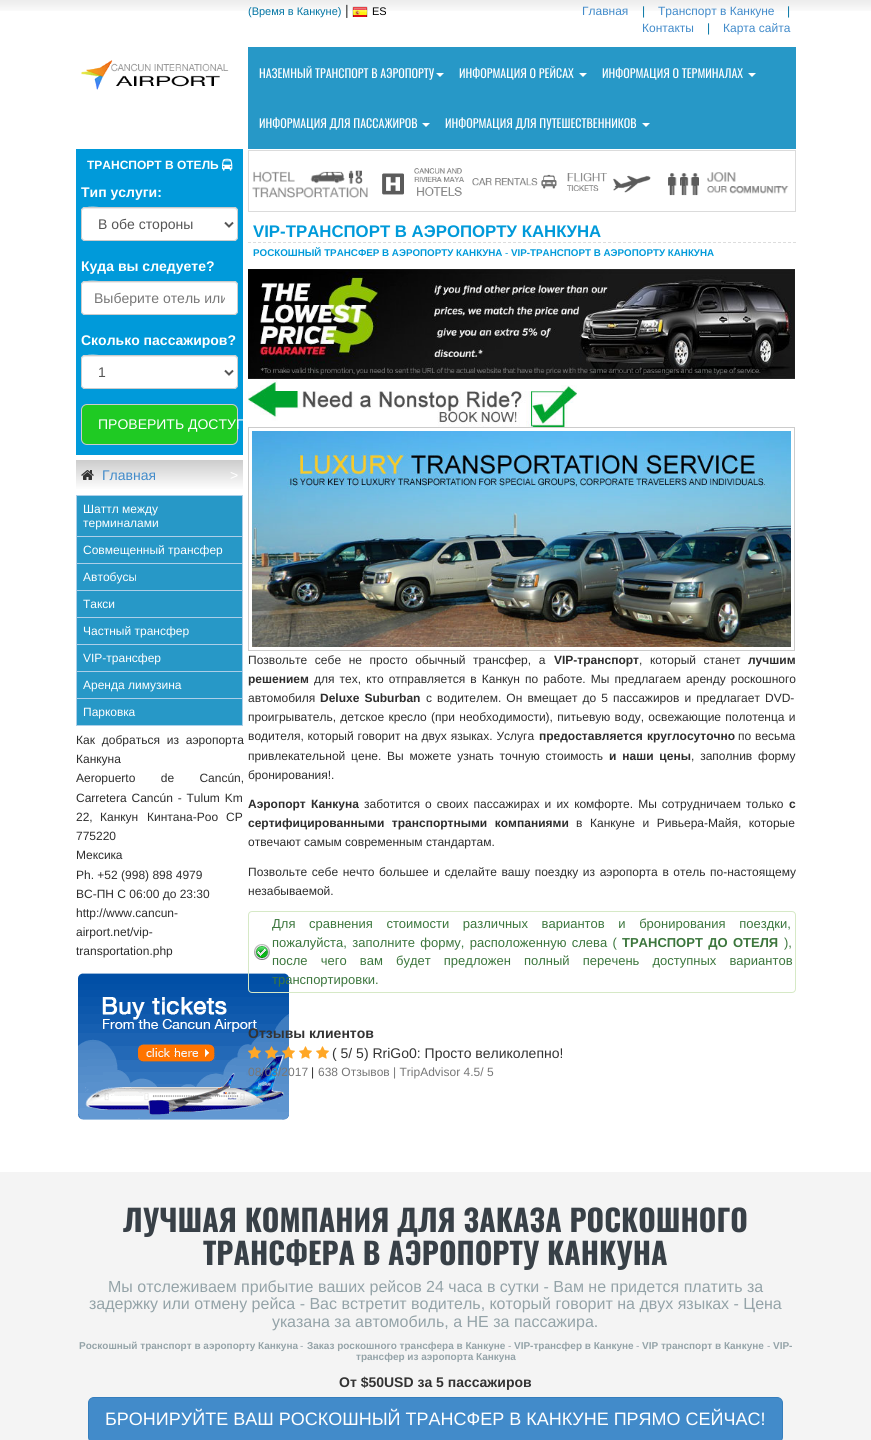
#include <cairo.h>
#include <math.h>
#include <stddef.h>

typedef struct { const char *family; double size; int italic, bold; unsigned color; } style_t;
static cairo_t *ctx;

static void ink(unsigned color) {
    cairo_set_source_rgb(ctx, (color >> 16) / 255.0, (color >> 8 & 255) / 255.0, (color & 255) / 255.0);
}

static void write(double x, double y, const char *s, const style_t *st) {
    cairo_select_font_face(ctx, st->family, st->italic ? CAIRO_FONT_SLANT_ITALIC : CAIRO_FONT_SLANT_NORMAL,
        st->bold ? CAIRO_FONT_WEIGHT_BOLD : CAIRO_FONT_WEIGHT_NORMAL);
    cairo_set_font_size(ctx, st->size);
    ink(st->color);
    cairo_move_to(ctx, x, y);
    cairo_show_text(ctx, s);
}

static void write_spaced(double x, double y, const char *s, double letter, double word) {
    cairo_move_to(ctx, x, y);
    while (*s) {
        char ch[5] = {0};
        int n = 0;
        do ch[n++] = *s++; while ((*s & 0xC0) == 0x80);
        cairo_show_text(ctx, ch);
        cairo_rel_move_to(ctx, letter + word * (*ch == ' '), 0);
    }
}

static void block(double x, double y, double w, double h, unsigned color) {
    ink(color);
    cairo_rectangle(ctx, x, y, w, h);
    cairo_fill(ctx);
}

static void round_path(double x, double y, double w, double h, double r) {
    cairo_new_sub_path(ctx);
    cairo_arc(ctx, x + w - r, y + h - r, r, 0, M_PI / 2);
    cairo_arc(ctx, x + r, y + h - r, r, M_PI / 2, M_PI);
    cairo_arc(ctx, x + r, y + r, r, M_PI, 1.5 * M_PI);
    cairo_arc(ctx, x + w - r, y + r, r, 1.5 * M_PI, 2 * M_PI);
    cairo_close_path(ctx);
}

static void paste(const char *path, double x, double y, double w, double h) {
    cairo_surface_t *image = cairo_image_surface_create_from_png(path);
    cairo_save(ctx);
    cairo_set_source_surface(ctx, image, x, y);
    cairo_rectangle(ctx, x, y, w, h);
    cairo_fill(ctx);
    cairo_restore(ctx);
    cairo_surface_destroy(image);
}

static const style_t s1 = {"Liberation Sans", 11, 0, 0, 0x0174a3};
static const style_t s2 = {"Liberation Sans", 14, 0, 0, 0x333333};
static const style_t s3 = {"Liberation Sans", 11, 0, 0, 0x000000};
static const style_t s4 = {"Liberation Sans", 12, 0, 0, 0x428bca};
static const style_t s5 = {"Liberation Sans", 12, 0, 0, 0x0174a3};
static const style_t s6 = {"Oswald", 12, 0, 0, 0xffffff};
static const style_t s7 = {"Liberation Sans", 12, 0, 1, 0xffffff};
static const style_t s8 = {"Liberation Sans", 14, 0, 1, 0xffffff};
static const style_t s9 = {"Liberation Sans", 14, 0, 0, 0x555555};
static const style_t s10 = {"Liberation Sans", 14, 0, 0, 0x777777};
static const style_t s11 = {"Liberation Sans", 14, 0, 0, 0xffffff};
static const style_t s12 = {"Liberation Sans", 14, 0, 0, 0x428bca};
static const style_t s13 = {"Liberation Sans", 12, 0, 0, 0xffffff};
static const style_t s14 = {"Liberation Sans", 12, 0, 0, 0x2d2d2d};
static const style_t s15 = {"Liberation Sans", 16.8, 0, 1, 0x009ada};
static const style_t s16 = {"Liberation Sans", 9.8, 0, 1, 0x009ada};
static const style_t s17 = {"Liberation Sans", 9.8, 0, 0, 0x009ada};
static const style_t s18 = {"Liberation Sans", 12, 0, 1, 0x2d2d2d};
static const style_t s19 = {"Liberation Sans", 13, 0, 0, 0x3c763d};
static const style_t s20 = {"Liberation Sans", 14, 0, 1, 0x333333};
static const style_t s21 = {"Liberation Sans", 12, 0, 0, 0x777777};
static const style_t s22 = {"Oswald", 30, 0, 1, 0x384047};
static const style_t s23 = {"Liberation Sans", 16, 0, 0, 0x94a3a8};
static const style_t s24 = {"Liberation Sans", 10, 0, 1, 0x94a3a8};
static const style_t s25 = {"Liberation Sans", 10, 0, 0, 0x94a3a8};
static const style_t s26 = {"Liberation Sans", 18, 0, 0, 0xffffff};

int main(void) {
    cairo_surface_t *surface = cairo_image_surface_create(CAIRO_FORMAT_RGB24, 871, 1440);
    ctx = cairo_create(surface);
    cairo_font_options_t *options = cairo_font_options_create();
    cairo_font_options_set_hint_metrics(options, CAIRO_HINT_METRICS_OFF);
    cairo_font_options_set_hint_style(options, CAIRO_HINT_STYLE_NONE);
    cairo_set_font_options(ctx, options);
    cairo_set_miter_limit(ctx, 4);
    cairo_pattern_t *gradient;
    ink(0xffffff);
    cairo_paint(ctx);
    paste("pic1.png", 0, 0, 871, 11);
    paste("pic2.png", 81, 60, 148, 30);
    write(248, 15, "(Время в Канкуне)", &s1);
    write(345, 15, "|", &s2);
    paste("pic3.png", 352, 6, 16, 11);
    write(372, 15, "ES", &s3);
    write(582, 15, "Главная", &s4);
    write(642, 15, "|", &s5);
    write(658, 15, "Транспорт в Канкуне", &s4);
    write(787, 15, "|", &s5);
    write(642, 32, "Контакты", &s4);
    write(707, 32, "|", &s5);
    write(723, 32, "Карта сайта", &s4);
    block(248, 47, 548, 102, 0x2798c7);
    write(259, 78, "НАЗЕМНЫЙ ТРАНСПОРТ В АЭРОПОРТУ", &s6);
    cairo_new_path(ctx);
    cairo_move_to(ctx, 436, 73);
    cairo_line_to(ctx, 444, 73);
    cairo_line_to(ctx, 440, 77);
    cairo_close_path(ctx);
    cairo_fill(ctx);
    write(459, 78, "ИНФОРМАЦИЯ О РЕЙСАХ", &s6);
    cairo_new_path(ctx);
    cairo_move_to(ctx, 579, 73);
    cairo_line_to(ctx, 587, 73);
    cairo_line_to(ctx, 583, 77);
    cairo_close_path(ctx);
    cairo_fill(ctx);
    write(602, 78, "ИНФОРМАЦИЯ О ТЕРМИНАЛАХ", &s6);
    cairo_new_path(ctx);
    cairo_move_to(ctx, 748, 73);
    cairo_line_to(ctx, 756, 73);
    cairo_line_to(ctx, 752, 77);
    cairo_close_path(ctx);
    cairo_fill(ctx);
    write(259, 128, "ИНФОРМАЦИЯ ДЛЯ ПАССАЖИРОВ", &s6);
    cairo_new_path(ctx);
    cairo_move_to(ctx, 422, 123);
    cairo_line_to(ctx, 430, 123);
    cairo_line_to(ctx, 426, 127);
    cairo_close_path(ctx);
    cairo_fill(ctx);
    write(445, 128, "ИНФОРМАЦИЯ ДЛЯ ПУТЕШЕСТВЕННИКОВ", &s6);
    cairo_new_path(ctx);
    cairo_move_to(ctx, 642, 123);
    cairo_line_to(ctx, 650, 123);
    cairo_line_to(ctx, 646, 127);
    cairo_close_path(ctx);
    cairo_fill(ctx);
    block(76, 149, 167, 306, 0x009ada);
    write(87, 169, "ТРАНСПОРТ В ОТЕЛЬ", &s7);
    paste("pic4.png", 222, 158, 11, 13);
    write(81, 197, "Тип услуги:", &s8);
    round_path(81, 207, 157, 34, 4);
    cairo_fill(ctx);
    ink(0xececec);
    cairo_new_path(ctx);
    cairo_move_to(ctx, 85, 209);
    cairo_line_to(ctx, 234, 209);
    cairo_curve_to(ctx, 236, 209, 237, 210, 237, 212);
    cairo_curve_to(ctx, 237, 210, 237, 209, 235, 208);
    cairo_line_to(ctx, 110, 208);
    cairo_curve_to(ctx, 102, 208, 82, 203, 82, 212);
    cairo_curve_to(ctx, 82, 210, 83, 209, 85, 209);
    cairo_close_path(ctx);
    cairo_fill(ctx);
    round_path(81.5, 207.5, 156, 33, 3.5);
    ink(0xcccccc);
    cairo_set_line_width(ctx, 1);
    cairo_stroke(ctx);
    cairo_new_path(ctx);
    cairo_move_to(ctx, 225, 222.5);
    cairo_line_to(ctx, 229, 226.5);
    cairo_line_to(ctx, 233, 222.5);
    ink(0x555555);
    cairo_set_line_width(ctx, 2);
    cairo_stroke(ctx);
    write(98, 229, "В обе стороны", &s9);
    write(81, 271, "Куда вы следуете?", &s8);
    round_path(81, 281, 157, 34, 4);
    cairo_fill(ctx);
    ink(0xececec);
    cairo_new_path(ctx);
    cairo_move_to(ctx, 85, 283);
    cairo_line_to(ctx, 234, 283);
    cairo_curve_to(ctx, 236, 283, 237, 284, 237, 286);
    cairo_curve_to(ctx, 237, 284, 237, 283, 235, 282);
    cairo_line_to(ctx, 110, 282);
    cairo_curve_to(ctx, 102, 282, 82, 277, 82, 286);
    cairo_curve_to(ctx, 82, 284, 83, 283, 85, 283);
    cairo_close_path(ctx);
    cairo_fill(ctx);
    round_path(81.5, 281.5, 156, 33, 3.5);
    ink(0xcccccc);
    cairo_set_line_width(ctx, 1);
    cairo_stroke(ctx);
    cairo_save(ctx);
    cairo_rectangle(ctx, 94, 290, 131, 16);
    cairo_clip(ctx);
    write(94, 303, "Выберите отель или", &s10);
    cairo_restore(ctx);
    write(81, 345, "Сколько пассажиров?", &s8);
    round_path(81, 355, 157, 34, 4);
    cairo_fill(ctx);
    ink(0xececec);
    cairo_new_path(ctx);
    cairo_move_to(ctx, 85, 357);
    cairo_line_to(ctx, 234, 357);
    cairo_curve_to(ctx, 236, 357, 237, 358, 237, 360);
    cairo_curve_to(ctx, 237, 358, 237, 357, 235, 356);
    cairo_line_to(ctx, 110, 356);
    cairo_curve_to(ctx, 102, 356, 82, 351, 82, 360);
    cairo_curve_to(ctx, 82, 358, 83, 357, 85, 357);
    cairo_close_path(ctx);
    cairo_fill(ctx);
    round_path(81.5, 355.5, 156, 33, 3.5);
    ink(0xcccccc);
    cairo_stroke(ctx);
    cairo_new_path(ctx);
    cairo_move_to(ctx, 225, 370.5);
    cairo_line_to(ctx, 229, 374.5);
    cairo_line_to(ctx, 233, 370.5);
    ink(0x555555);
    cairo_set_line_width(ctx, 2);
    cairo_stroke(ctx);
    write(98, 377, "1", &s9);
    ink(0x1fca23);
    round_path(81.5, 404.5, 156, 40, 5.5);
    cairo_fill_preserve(ctx);
    ink(0xcccccc);
    cairo_set_line_width(ctx, 1);
    cairo_stroke(ctx);
    write(98, 429, "ПРОВЕРИТЬ ДОСТУП", &s11);
    gradient = cairo_pattern_create_linear(160, 460, 160, 490);
    cairo_pattern_add_color_stop_rgba(gradient, 0, 0.8, 0.8, 0.8, 1);
    cairo_pattern_add_color_stop_rgba(gradient, 1, 1, 1, 1, 1);
    cairo_set_source(ctx, gradient);
    cairo_pattern_destroy(gradient);
    cairo_rectangle(ctx, 76, 460, 167, 29);
    cairo_fill(ctx);
    paste("pic5.png", 81, 470, 13, 10);
    write(102, 480, "Главная", &s12);
    write(230, 480, ">", &s11);
    block(76, 495, 167, 1, 0xaccfe8);
    block(242, 495, 1, 231, 0xaccfe8);
    block(76, 495, 1, 231, 0xaccfe8);
    block(77, 536, 165, 1, 0xaccfe8);
    block(77, 496, 165, 40, 0x2798c7);
    write(83, 513, "Шаттл между", &s13);
    write(83, 527, "терминалами", &s13);
    block(77, 563, 165, 1, 0xaccfe8);
    block(77, 537, 165, 26, 0x2798c7);
    write(83, 554, "Совмещенный трансфер", &s13);
    block(77, 590, 165, 1, 0xaccfe8);
    block(77, 564, 165, 26, 0x2798c7);
    write(83, 581, "Автобусы", &s13);
    block(77, 617, 165, 1, 0xaccfe8);
    block(77, 591, 165, 26, 0x2798c7);
    write(83, 608, "Такси", &s13);
    block(77, 644, 165, 1, 0xaccfe8);
    block(77, 618, 165, 26, 0x2798c7);
    write(83, 635, "Частный трансфер", &s13);
    block(77, 671, 165, 1, 0xaccfe8);
    block(77, 645, 165, 26, 0x2798c7);
    write(83, 662, "VIP-трансфер", &s13);
    block(77, 698, 165, 1, 0xaccfe8);
    block(77, 672, 165, 26, 0x2798c7);
    write(83, 689, "Аренда лимузина", &s13);
    block(77, 725, 165, 1, 0xaccfe8);
    block(77, 699, 165, 26, 0x2798c7);
    write(83, 716, "Парковка", &s13);
    ink(0x2d2d2d);
    write_spaced(76, 744, "Как добраться из аэропорта", 0, 3.5);
    write(76, 763, "Канкуна", &s14);
    write_spaced(76, 782, "Aeropuerto de Cancún,", 0, 22);
    write_spaced(76, 802, "Carretera Cancún - Tulum Km", 0, 1.5);
    write(76, 821, "22,", &s14);
    write(100, 821, "Канкун", &s14);
    write(147, 821, "Кинтана-Роо", &s14);
    write(226, 821, "CP", &s14);
    write(76, 840, "775220", &s14);
    write(76, 859, "Мексика", &s14);
    write(76, 879, "Ph. +52 (998) 898 4979", &s14);
    write(76, 898, "ВС-ПН С 06:00 до 23:30", &s14);
    write(76, 917, "http://www.cancun-", &s14);
    write(76, 936, "airport.net/vip-", &s14);
    write(76, 955, "transportation.php", &s14);
    paste("pic6.png", 78, 973, 211, 147);
    cairo_rectangle(ctx, 248.5, 150.5, 547, 61);
    ink(0xdbdbdb);
    cairo_stroke(ctx);
    paste("pic7.png", 252, 170, 116, 28);
    paste("pic8.png", 382, 168, 83, 28);
    paste("pic9.png", 472, 174, 85, 15);
    paste("pic10.png", 567, 173, 84, 20);
    paste("pic11.png", 668, 172, 121, 24);
    cairo_new_path(ctx);
    cairo_move_to(ctx, 248, 242.5);
    cairo_line_to(ctx, 796, 242.5);
    ink(0xdddddd);
    cairo_set_dash(ctx, (double[]){3, 2}, 2, 0);
    cairo_stroke(ctx);
    write(253, 237, "VIP-ТРАНСПОРТ В АЭРОПОРТУ КАНКУНА", &s15);
    write(253, 256, "РОСКОШНЫЙ ТРАНСФЕР В АЭРОПОРТУ КАНКУНА", &s16);
    write(505, 256, "-", &s17);
    write(511, 256, "VIP-ТРАНСПОРТ В АЭРОПОРТУ КАНКУНА", &s16);
    paste("pic12.png", 248, 269, 547, 110);
    paste("pic13.png", 248, 379, 329, 48);
    cairo_rectangle(ctx, 248.5, 427.5, 546, 223);
    ink(0xcccccc);
    cairo_set_dash(ctx, NULL, 0, 0);
    cairo_stroke(ctx);
    paste("pic14.png", 252, 431, 539, 216);
    cairo_select_font_face(ctx, "Liberation Sans", CAIRO_FONT_SLANT_NORMAL, CAIRO_FONT_WEIGHT_NORMAL);
    cairo_set_font_size(ctx, 12);
    ink(0x2d2d2d);
    write_spaced(248, 664, "Позвольте себе не просто обычный трансфер, а", 0, 4.25);
    write(554, 664, "VIP-транспорт", &s18);
    cairo_select_font_face(ctx, "Liberation Sans", CAIRO_FONT_SLANT_NORMAL, CAIRO_FONT_WEIGHT_NORMAL);
    write_spaced(639, 664, ", который станет", 0, 4.25);
    write(748, 664, "лучшим", &s18);
    write(248, 683, "решением", &s18);
    cairo_select_font_face(ctx, "Liberation Sans", CAIRO_FONT_SLANT_NORMAL, CAIRO_FONT_WEIGHT_NORMAL);
    write_spaced(314, 683, "для тех, кто отправляется в Канкун по работе. Мы предлагаем аренду роскошного", 0, 1.75);
    write(248, 702, "автомобиля", &s14);
    cairo_select_font_face(ctx, "Liberation Sans", CAIRO_FONT_SLANT_NORMAL, CAIRO_FONT_WEIGHT_BOLD);
    write_spaced(320, 702, "Deluxe Suburban", 0, 1.75);
    cairo_select_font_face(ctx, "Liberation Sans", CAIRO_FONT_SLANT_NORMAL, CAIRO_FONT_WEIGHT_NORMAL);
    write_spaced(426, 702, "с водителем. Он вмещает до 5 пассажиров и предлагает DVD-", 0, 1.75);
    write_spaced(248, 721, "проигрыватель, детское кресло (при необходимости), питьевую воду, освежающие полотенца и", 0, 1);
    write_spaced(248, 740, "водителя, который говорит на двух языках. Услуга", 0, 0.5);
    cairo_select_font_face(ctx, "Liberation Sans", CAIRO_FONT_SLANT_NORMAL, CAIRO_FONT_WEIGHT_BOLD);
    write_spaced(539, 740, "предоставляется круглосуточно", 0, 1);
    cairo_select_font_face(ctx, "Liberation Sans", CAIRO_FONT_SLANT_NORMAL, CAIRO_FONT_WEIGHT_NORMAL);
    write_spaced(738, 740, "по весьма", 0, 0.5);
    write_spaced(248, 760, "привлекательной цене. Вы можете узнать точную стоимость", 0, 2.5);
    cairo_select_font_face(ctx, "Liberation Sans", CAIRO_FONT_SLANT_NORMAL, CAIRO_FONT_WEIGHT_BOLD);
    write_spaced(609, 760, "и наши цены", 0, 2.5);
    cairo_select_font_face(ctx, "Liberation Sans", CAIRO_FONT_SLANT_NORMAL, CAIRO_FONT_WEIGHT_NORMAL);
    write_spaced(691, 760, ", заполнив форму", 0, 2.5);
    write(248, 779, "бронирования!.", &s14);
    cairo_select_font_face(ctx, "Liberation Sans", CAIRO_FONT_SLANT_NORMAL, CAIRO_FONT_WEIGHT_BOLD);
    write_spaced(248, 808, "Аэропорт Канкуна", 0, 2);
    cairo_select_font_face(ctx, "Liberation Sans", CAIRO_FONT_SLANT_NORMAL, CAIRO_FONT_WEIGHT_NORMAL);
    write_spaced(364, 808, "заботится о своих пассажирах и их комфорте. Мы сотрудничаем только", 0, 1.75);
    write(789, 808, "с", &s18);
    write_spaced(248, 827, "сертифицированными транспортными компаниями", 0, 4.25);
    cairo_select_font_face(ctx, "Liberation Sans", CAIRO_FONT_SLANT_NORMAL, CAIRO_FONT_WEIGHT_NORMAL);
    write_spaced(576, 827, "в Канкуне и Ривьера-Майя, которые", 0, 4.25);
    write(248, 846, "отвечают самым современным стандартам.", &s14);
    write_spaced(248, 876, "Позвольте себе нечто большее и сделайте вашу поездку из аэропорта в отель по-настоящему", 0, 1.25);
    write(248, 895, "незабываемой.", &s14);
    paste("pic15.png", 254, 944, 16, 16);
    round_path(248.5, 911.5, 547, 81, 3.5);
    ink(0xd6e9c6);
    cairo_stroke(ctx);
    cairo_set_font_size(ctx, 13);
    ink(0x3c763d);
    write_spaced(272, 928, "Для сравнения стоимости различных вариантов и бронирования поездки,", 0, 10);
    write_spaced(272, 947, "пожалуйста, заполните форму, расположенную слева (", 0, 1.75);
    cairo_select_font_face(ctx, "Liberation Sans", CAIRO_FONT_SLANT_NORMAL, CAIRO_FONT_WEIGHT_BOLD);
    write_spaced(622, 947, "ТРАНСПОРТ ДО ОТЕЛЯ", 0, 1.75);
    write(784, 947, "),", &s19);
    write_spaced(272, 965, "после чего вам будет предложен полный перечень доступных вариантов", 0, 9.5);
    write(272, 984, "транспортировки.", &s19);
    write(248, 1038, "Отзывы клиентов", &s20);
    paste("pic16.png", 248, 1046, 13, 13);
    paste("pic17.png", 265, 1046, 13, 13);
    paste("pic18.png", 282, 1046, 13, 13);
    paste("pic19.png", 299, 1046, 13, 13);
    paste("pic19.png", 316, 1046, 13, 13);
    write(332, 1058, "( 5/ 5) RriGo0: Просто великолепно!", &s2);
    write(248, 1076, "08/03/2017", &s21);
    write(311, 1076, "|", &s14);
    write(318, 1076, "638 Отзывов | TripAdvisor 4.5/ 5", &s21);
    block(0, 1172, 871, 268, 0xf4f4f4);
    write(123, 1232, "ЛУЧШАЯ КОМПАНИЯ ДЛЯ ЗАКАЗА РОСКОШНОГО", &s22);
    write(203, 1265, "ТРАНСФЕРА В АЭРОПОРТУ КАНКУНА", &s22);
    write(108, 1292, "Мы отслеживаем прибытие ваших рейсов 24 часа в сутки - Вам не придется платить за", &s23);
    write(89, 1309, "задержку или отмену рейса - Вас встретит водитель, который говорит на двух языках - Цена", &s23);
    write(272, 1327, "указана за автомобиль, а НЕ за пассажира.", &s23);
    write(79, 1349, "Роскошный транспорт в аэропорту Канкуна", &s24);
    write(300, 1349, "-", &s25);
    write(307, 1349, "Заказ роскошного трансфера в Канкуне", &s24);
    write(508, 1349, "-", &s25);
    write(514, 1349, "VIP-трансфер в Канкуне", &s24);
    write(636, 1349, "-", &s25);
    write(642, 1349, "VIP транспорт в Канкуне", &s24);
    write(767, 1349, "-", &s25);
    write(773, 1349, "VIP-", &s24);
    write(356, 1360, "трансфер из аэропорта Канкуна", &s24);
    write(339, 1387, "От $50USD за 5 пассажиров", &s20);
    ink(0x428bca);
    round_path(88.5, 1397.5, 694, 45, 5.5);
    cairo_fill_preserve(ctx);
    ink(0x357ebd);
    cairo_stroke(ctx);
    write(105, 1425, "БРОНИРУЙТЕ ВАШ РОСКОШНЫЙ ТРАНСФЕР В КАНКУНЕ ПРЯМО СЕЙЧАС!", &s26);
    cairo_surface_write_to_png(surface, "screenshot.png");
    cairo_font_options_destroy(options);
    cairo_destroy(ctx);
    cairo_surface_destroy(surface);
    return 0;
}
